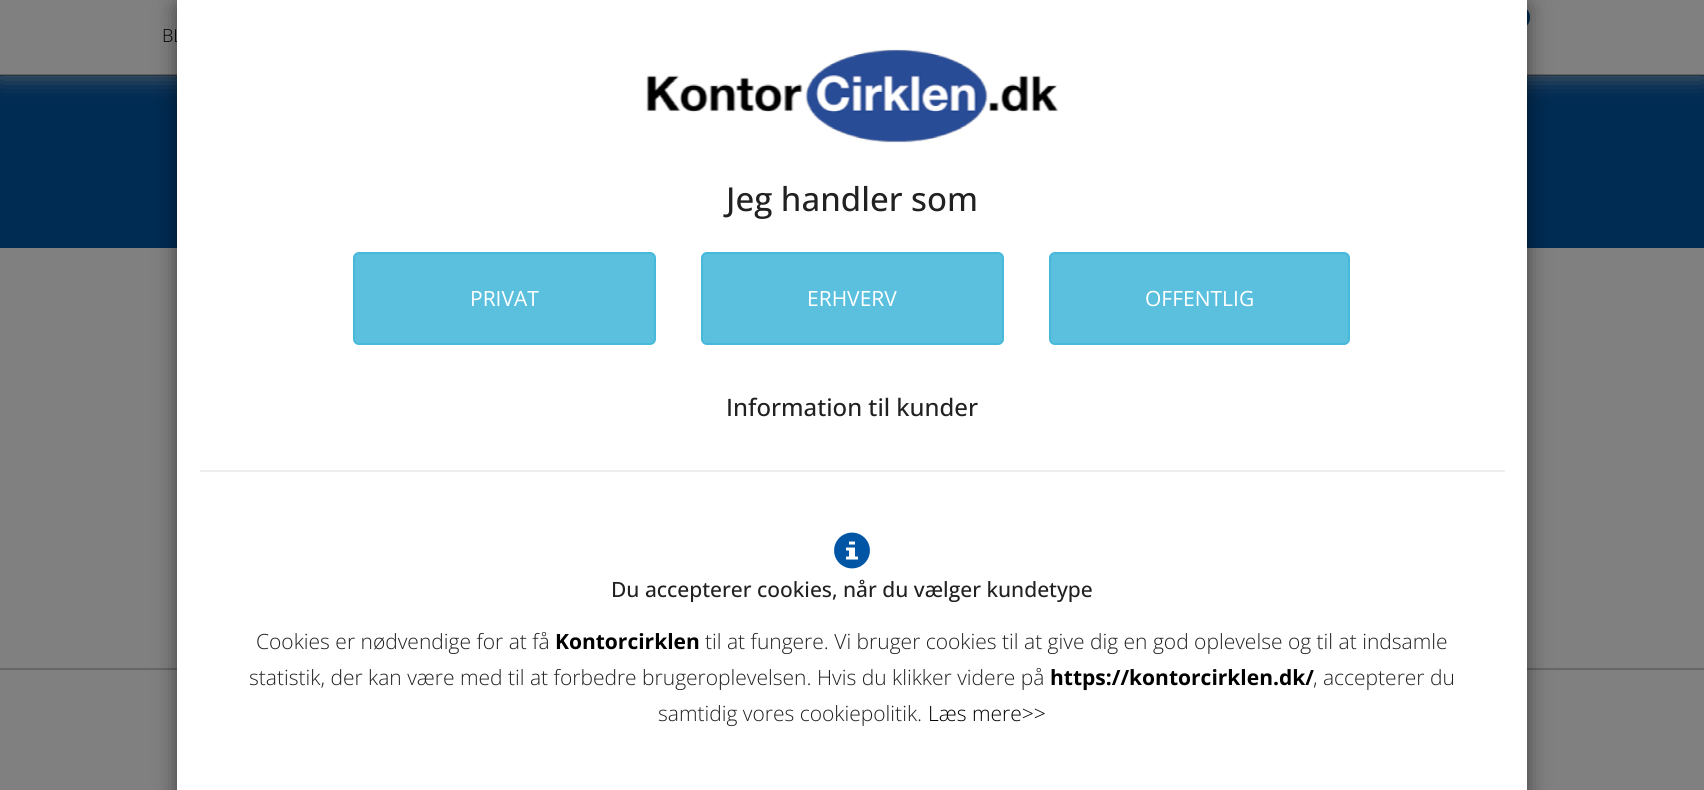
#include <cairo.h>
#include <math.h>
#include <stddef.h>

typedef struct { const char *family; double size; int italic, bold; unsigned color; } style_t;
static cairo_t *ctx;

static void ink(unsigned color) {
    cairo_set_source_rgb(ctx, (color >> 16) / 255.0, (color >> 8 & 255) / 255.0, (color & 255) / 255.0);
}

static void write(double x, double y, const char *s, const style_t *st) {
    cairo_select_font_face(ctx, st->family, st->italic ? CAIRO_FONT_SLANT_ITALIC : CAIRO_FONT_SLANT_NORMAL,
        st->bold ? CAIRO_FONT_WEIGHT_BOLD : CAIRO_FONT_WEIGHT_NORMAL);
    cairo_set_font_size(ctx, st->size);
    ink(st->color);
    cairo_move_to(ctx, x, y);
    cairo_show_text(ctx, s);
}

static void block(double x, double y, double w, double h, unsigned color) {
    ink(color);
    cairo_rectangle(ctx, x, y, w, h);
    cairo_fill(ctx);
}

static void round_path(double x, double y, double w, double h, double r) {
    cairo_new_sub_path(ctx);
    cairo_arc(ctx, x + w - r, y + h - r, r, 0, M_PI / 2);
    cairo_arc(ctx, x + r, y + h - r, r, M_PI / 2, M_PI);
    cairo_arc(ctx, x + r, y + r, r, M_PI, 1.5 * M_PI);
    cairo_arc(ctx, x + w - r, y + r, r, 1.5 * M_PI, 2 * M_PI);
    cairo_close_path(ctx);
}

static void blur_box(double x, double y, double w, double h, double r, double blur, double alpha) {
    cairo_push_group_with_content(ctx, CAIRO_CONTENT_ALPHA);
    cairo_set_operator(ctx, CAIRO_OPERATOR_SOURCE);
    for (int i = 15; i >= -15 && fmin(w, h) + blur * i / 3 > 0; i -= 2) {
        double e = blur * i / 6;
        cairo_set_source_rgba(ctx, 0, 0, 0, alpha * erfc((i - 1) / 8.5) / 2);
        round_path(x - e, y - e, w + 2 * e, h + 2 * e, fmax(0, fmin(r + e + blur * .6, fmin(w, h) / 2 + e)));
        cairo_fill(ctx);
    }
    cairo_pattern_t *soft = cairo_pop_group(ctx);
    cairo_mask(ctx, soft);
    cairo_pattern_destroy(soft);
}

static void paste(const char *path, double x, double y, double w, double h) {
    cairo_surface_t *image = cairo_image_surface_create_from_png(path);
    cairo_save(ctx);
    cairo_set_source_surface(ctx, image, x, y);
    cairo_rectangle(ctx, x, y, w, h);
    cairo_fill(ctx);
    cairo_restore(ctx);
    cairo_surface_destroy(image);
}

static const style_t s1 = {"Open Sans Light", 18, 0, 0, 0x000000};
static const style_t s2 = {"Open Sans Medium", 33, 0, 0, 0x212121};
static const style_t s3 = {"Open Sans", 21, 0, 0, 0xffffff};
static const style_t s4 = {"Open Sans Medium", 24, 0, 0, 0x212121};
static const style_t s5 = {"Open Sans Medium", 21, 0, 0, 0x212121};
static const style_t s6 = {"Open Sans Light", 21, 0, 0, 0x212121};
static const style_t s7 = {"Open Sans", 21, 0, 1, 0x000000};
static const style_t s8 = {"Open Sans Light", 21, 0, 0, 0x000000};

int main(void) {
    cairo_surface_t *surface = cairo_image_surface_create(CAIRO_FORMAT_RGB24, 1704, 790);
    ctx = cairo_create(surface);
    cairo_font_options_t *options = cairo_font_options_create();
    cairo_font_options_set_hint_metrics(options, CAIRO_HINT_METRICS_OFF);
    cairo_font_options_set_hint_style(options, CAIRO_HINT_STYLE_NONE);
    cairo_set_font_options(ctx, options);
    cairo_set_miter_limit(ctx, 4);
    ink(0x808080);
    cairo_paint(ctx);
    block(0, 75, 1704, 173, 0x002b53);
    ink(0x666666);
    blur_box(0, 0, 1704, 75, 0, 12, 1);
    block(0, 0, 1704, 75, 0x808080);
    ink(0x002b53);
    round_path(1508, 6, 22, 23, 11);
    cairo_fill(ctx);
    cairo_set_source_rgba(ctx, 0, 0, 0, 0.25);
    cairo_rectangle(ctx, 0, 74, 1704, 2);
    cairo_fill(ctx);
    write(162, 42, "BL", &s1);
    block(0, 668, 1704, 2, 0x666666);
    ink(0x000000);
    blur_box(177, 0, 1350, 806, 9, 11, 0.5);
    block(177, 0, 1350, 790, 0xffffff);
    paste("pic1.png", 646, 49, 413, 94);
    write(726, 211, "Jeg handler som", &s2);
    ink(0x5bc0de);
    round_path(354, 253, 301, 91, 5);
    cairo_fill_preserve(ctx);
    ink(0x46b8da);
    cairo_stroke(ctx);
    write(470, 306, "PRIVAT", &s3);
    ink(0x5bc0de);
    round_path(702, 253, 301, 91, 5);
    cairo_fill_preserve(ctx);
    ink(0x46b8da);
    cairo_stroke(ctx);
    write(807, 306, "ERHVERV", &s3);
    ink(0x5bc0de);
    round_path(1050, 253, 299, 91, 5);
    cairo_fill_preserve(ctx);
    ink(0x46b8da);
    cairo_stroke(ctx);
    write(1145, 306, "OFFENTLIG", &s3);
    write(726, 416, "Information til kunder", &s4);
    block(200, 470, 1305, 2, 0xeeeeee);
    paste("pic2.png", 834, 532, 36, 37);
    write(611, 597, "Du accepterer cookies, når du vælger kundetype", &s5);
    write(256, 649, "Cookies er nødvendige for at få", &s6);
    write(555, 649, "Kontorcirklen", &s7);
    write(705, 649, "til at fungere. Vi bruger cookies til at give dig en god oplevelse og til at indsamle", &s6);
    write(249, 685, "statistik, der kan være med til at forbedre brugeroplevelsen. Hvis du klikker videre på", &s6);
    write(1050, 685, "https://kontorcirklen.dk/", &s7);
    write(1313, 685, ", accepterer du", &s6);
    write(658, 721, "samtidig vores cookiepolitik.", &s6);
    write(928, 721, "Læs mere>>", &s8);
    cairo_surface_write_to_png(surface, "screenshot.png");
    cairo_font_options_destroy(options);
    cairo_destroy(ctx);
    cairo_surface_destroy(surface);
    return 0;
}
